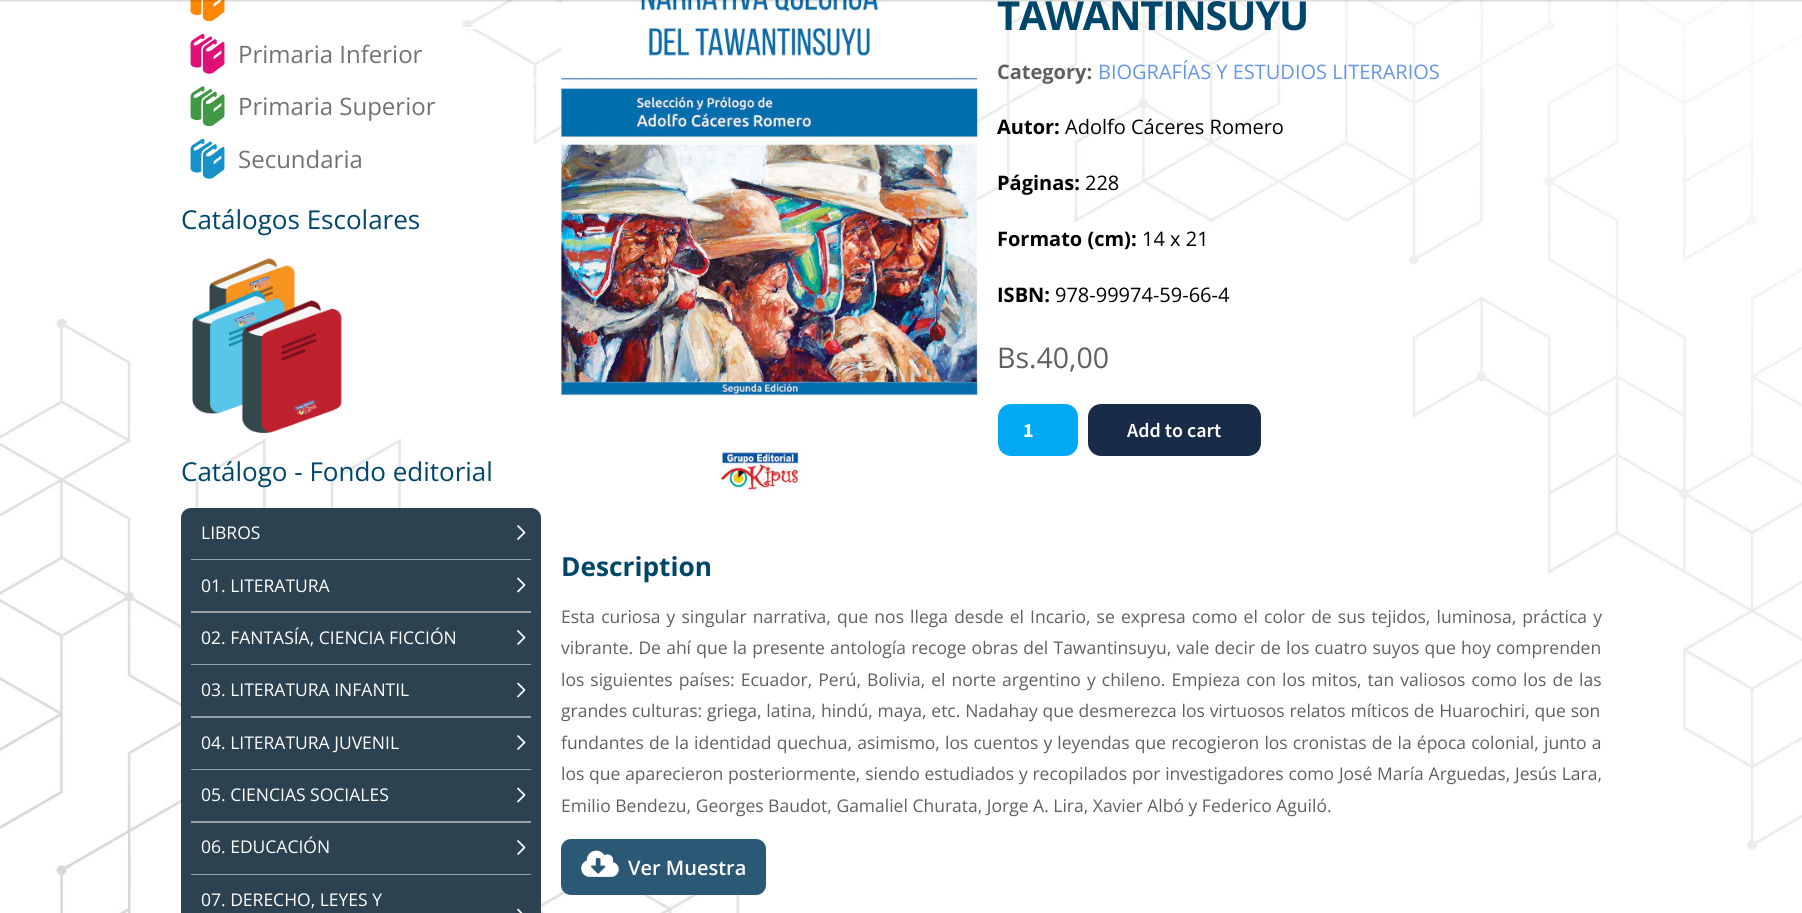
#include <cairo.h>
#include <math.h>
#include <stddef.h>

typedef struct { const char *family; double size; int italic, bold; unsigned color; } style_t;
static cairo_t *ctx;

static void ink(unsigned color) {
    cairo_set_source_rgb(ctx, (color >> 16) / 255.0, (color >> 8 & 255) / 255.0, (color & 255) / 255.0);
}

static void write(double x, double y, const char *s, const style_t *st) {
    cairo_select_font_face(ctx, st->family, st->italic ? CAIRO_FONT_SLANT_ITALIC : CAIRO_FONT_SLANT_NORMAL,
        st->bold ? CAIRO_FONT_WEIGHT_BOLD : CAIRO_FONT_WEIGHT_NORMAL);
    cairo_set_font_size(ctx, st->size);
    ink(st->color);
    cairo_move_to(ctx, x, y);
    cairo_show_text(ctx, s);
}

static void write_spaced(double x, double y, const char *s, double letter, double word) {
    cairo_move_to(ctx, x, y);
    while (*s) {
        char ch[5] = {0};
        int n = 0;
        do ch[n++] = *s++; while ((*s & 0xC0) == 0x80);
        cairo_show_text(ctx, ch);
        cairo_rel_move_to(ctx, letter + word * (*ch == ' '), 0);
    }
}

static void round_path(double x, double y, double w, double h, double r) {
    cairo_new_sub_path(ctx);
    cairo_arc(ctx, x + w - r, y + h - r, r, 0, M_PI / 2);
    cairo_arc(ctx, x + r, y + h - r, r, M_PI / 2, M_PI);
    cairo_arc(ctx, x + r, y + r, r, M_PI, 1.5 * M_PI);
    cairo_arc(ctx, x + w - r, y + r, r, 1.5 * M_PI, 2 * M_PI);
    cairo_close_path(ctx);
}

static void blur_box(double x, double y, double w, double h, double r, double blur, double alpha) {
    cairo_push_group_with_content(ctx, CAIRO_CONTENT_ALPHA);
    cairo_set_operator(ctx, CAIRO_OPERATOR_SOURCE);
    for (int i = 15; i >= -15 && fmin(w, h) + blur * i / 3 > 0; i -= 2) {
        double e = blur * i / 6;
        cairo_set_source_rgba(ctx, 0, 0, 0, alpha * erfc((i - 1) / 8.5) / 2);
        round_path(x - e, y - e, w + 2 * e, h + 2 * e, fmax(0, fmin(r + e + blur * .6, fmin(w, h) / 2 + e)));
        cairo_fill(ctx);
    }
    cairo_pattern_t *soft = cairo_pop_group(ctx);
    cairo_mask(ctx, soft);
    cairo_pattern_destroy(soft);
}

static void paste(const char *path, double x, double y, double w, double h) {
    cairo_surface_t *image = cairo_image_surface_create_from_png(path);
    cairo_save(ctx);
    cairo_set_source_surface(ctx, image, x, y);
    cairo_rectangle(ctx, x, y, w, h);
    cairo_fill(ctx);
    cairo_restore(ctx);
    cairo_surface_destroy(image);
}

static const style_t s1 = {"Open Sans", 24, 0, 0, 0x727272};
static const style_t s2 = {"Open Sans", 26, 0, 0, 0x00466b};
static const style_t s3 = {"Open Sans", 17.5, 0, 0, 0xffffff};
static const style_t s4 = {"Open Sans", 20, 0, 1, 0x606060};
static const style_t s5 = {"Open Sans", 20, 0, 0, 0x6495ed};
static const style_t s6 = {"Open Sans", 20, 0, 1, 0x000000};
static const style_t s7 = {"Open Sans", 20, 0, 0, 0x000000};
static const style_t s8 = {"Open Sans", 28.5, 0, 0, 0x606060};
static const style_t s9 = {"Source Sans Pro", 20, 0, 1, 0xffffff};
static const style_t s10 = {"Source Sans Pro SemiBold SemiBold", 20, 0, 0, 0xffffff};
static const style_t s11 = {"Open Sans", 26.25, 0, 1, 0x00466b};
static const style_t s12 = {"Open Sans", 17.5, 0, 0, 0x606060};
static const style_t s13 = {"Open Sans SemiBold", 20, 0, 0, 0xffffff};

int main(void) {
    cairo_surface_t *surface = cairo_image_surface_create(CAIRO_FORMAT_RGB24, 1802, 913);
    ctx = cairo_create(surface);
    cairo_font_options_t *options = cairo_font_options_create();
    cairo_font_options_set_hint_metrics(options, CAIRO_HINT_METRICS_OFF);
    cairo_font_options_set_hint_style(options, CAIRO_HINT_STYLE_NONE);
    cairo_set_font_options(ctx, options);
    cairo_set_miter_limit(ctx, 4);
    ink(0xffffff);
    cairo_paint(ctx);
    paste("pic1.png", 0, 0, 1802, 913);
    round_path(181.5, -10.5, 359, 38, 9.5);
    ink(0xffffff);
    cairo_set_line_width(ctx, 1);
    cairo_stroke(ctx);
    paste("pic2.png", 190, 0, 35, 21);
    paste("pic7.png", 561, 0, 417, 495);
    ink(0x000000);
    blur_box(0, -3, 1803, 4, 0, 1, 0.2);
    round_path(181.5, 28.5, 359, 51, 9.5);
    ink(0xffffff);
    cairo_stroke(ctx);
    paste("pic3.png", 190, 34, 35, 40);
    write(238, 63, "Primaria Inferior", &s1);
    round_path(181.5, 80.5, 359, 52, 9.5);
    ink(0xffffff);
    cairo_stroke(ctx);
    paste("pic4.png", 190, 86, 35, 40);
    write(238, 115, "Primaria Superior", &s1);
    round_path(181.5, 133.5, 359, 51, 9.5);
    ink(0xffffff);
    cairo_stroke(ctx);
    paste("pic5.png", 190, 139, 35, 40);
    write(238, 168, "Secundaria", &s1);
    write(181, 229, "Catálogos Escolares", &s2);
    paste("pic6.png", 192, 258, 150, 176);
    write(181, 481, "Catálogo - Fondo editorial", &s2);
    ink(0x2c4251);
    round_path(181, 508, 360, 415, 10);
    cairo_fill(ctx);
    ink(0x96a1a8);
    cairo_new_path(ctx);
    cairo_move_to(ctx, 191, 509);
    cairo_line_to(ctx, 191, 560);
    cairo_line_to(ctx, 531, 560);
    cairo_line_to(ctx, 531, 559);
    cairo_line_to(ctx, 191, 559);
    cairo_close_path(ctx);
    cairo_fill(ctx);
    cairo_new_path(ctx);
    cairo_move_to(ctx, 518, 526);
    cairo_line_to(ctx, 524.5, 532.5);
    cairo_line_to(ctx, 518, 539);
    ink(0xffffff);
    cairo_set_line_width(ctx, 1.7);
    cairo_set_line_cap(ctx, CAIRO_LINE_CAP_ROUND);
    cairo_set_line_join(ctx, CAIRO_LINE_JOIN_ROUND);
    cairo_stroke(ctx);
    write(201, 539, "LIBROS", &s3);
    ink(0x96a1a8);
    cairo_new_path(ctx);
    cairo_move_to(ctx, 191, 560);
    cairo_line_to(ctx, 191, 613);
    cairo_line_to(ctx, 531, 613);
    cairo_line_to(ctx, 531, 611);
    cairo_line_to(ctx, 191, 611);
    cairo_close_path(ctx);
    cairo_fill(ctx);
    cairo_new_path(ctx);
    cairo_move_to(ctx, 518, 578.5);
    cairo_line_to(ctx, 524.5, 585);
    cairo_line_to(ctx, 518, 591.5);
    ink(0xffffff);
    cairo_stroke(ctx);
    write(201, 592, "01. LITERATURA", &s3);
    ink(0x96a1a8);
    cairo_new_path(ctx);
    cairo_move_to(ctx, 191, 613);
    cairo_line_to(ctx, 191, 665);
    cairo_line_to(ctx, 531, 665);
    cairo_line_to(ctx, 531, 664);
    cairo_line_to(ctx, 191, 664);
    cairo_close_path(ctx);
    cairo_fill(ctx);
    cairo_new_path(ctx);
    cairo_move_to(ctx, 518, 631);
    cairo_line_to(ctx, 524.5, 637.5);
    cairo_line_to(ctx, 518, 644);
    ink(0xffffff);
    cairo_stroke(ctx);
    write(201, 644, "02. FANTASÍA, CIENCIA FICCIÓN", &s3);
    ink(0x96a1a8);
    cairo_new_path(ctx);
    cairo_move_to(ctx, 191, 665);
    cairo_line_to(ctx, 191, 718);
    cairo_line_to(ctx, 531, 718);
    cairo_line_to(ctx, 531, 716);
    cairo_line_to(ctx, 191, 716);
    cairo_close_path(ctx);
    cairo_fill(ctx);
    cairo_new_path(ctx);
    cairo_move_to(ctx, 518, 683.5);
    cairo_line_to(ctx, 524.5, 690);
    cairo_line_to(ctx, 518, 696.5);
    ink(0xffffff);
    cairo_stroke(ctx);
    write(201, 696, "03. LITERATURA INFANTIL", &s3);
    ink(0x96a1a8);
    cairo_new_path(ctx);
    cairo_move_to(ctx, 191, 718);
    cairo_line_to(ctx, 191, 770);
    cairo_line_to(ctx, 531, 770);
    cairo_line_to(ctx, 531, 769);
    cairo_line_to(ctx, 191, 769);
    cairo_close_path(ctx);
    cairo_fill(ctx);
    cairo_new_path(ctx);
    cairo_move_to(ctx, 518, 736);
    cairo_line_to(ctx, 524.5, 742.5);
    cairo_line_to(ctx, 518, 749);
    ink(0xffffff);
    cairo_stroke(ctx);
    write(201, 749, "04. LITERATURA JUVENIL", &s3);
    ink(0x96a1a8);
    cairo_new_path(ctx);
    cairo_move_to(ctx, 191, 770);
    cairo_line_to(ctx, 191, 823);
    cairo_line_to(ctx, 531, 823);
    cairo_line_to(ctx, 531, 821);
    cairo_line_to(ctx, 191, 821);
    cairo_close_path(ctx);
    cairo_fill(ctx);
    cairo_new_path(ctx);
    cairo_move_to(ctx, 518, 788.5);
    cairo_line_to(ctx, 524.5, 795);
    cairo_line_to(ctx, 518, 801.5);
    ink(0xffffff);
    cairo_stroke(ctx);
    write(201, 801, "05. CIENCIAS SOCIALES", &s3);
    ink(0x96a1a8);
    cairo_new_path(ctx);
    cairo_move_to(ctx, 191, 823);
    cairo_line_to(ctx, 191, 875);
    cairo_line_to(ctx, 531, 875);
    cairo_line_to(ctx, 531, 874);
    cairo_line_to(ctx, 191, 874);
    cairo_close_path(ctx);
    cairo_fill(ctx);
    cairo_new_path(ctx);
    cairo_move_to(ctx, 518, 841);
    cairo_line_to(ctx, 524.5, 847.5);
    cairo_line_to(ctx, 518, 854);
    ink(0xffffff);
    cairo_stroke(ctx);
    write(201, 853, "06. EDUCACIÓN", &s3);
    cairo_new_path(ctx);
    cairo_move_to(ctx, 518, 909.5);
    cairo_line_to(ctx, 524.5, 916.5);
    cairo_line_to(ctx, 518, 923);
    cairo_stroke(ctx);
    write(201, 906, "07. DERECHO, LEYES Y", &s3);
    cairo_select_font_face(ctx, "Open Sans", CAIRO_FONT_SLANT_NORMAL, CAIRO_FONT_WEIGHT_BOLD);
    cairo_set_font_size(ctx, 40);
    ink(0x00466b);
    write_spaced(997, 30, "TAWANTINSUYU", -1.25, 0);
    write(997, 79, "Category:", &s4);
    write(1098, 79, "BIOGRAFÍAS Y ESTUDIOS LITERARIOS", &s5);
    write(997, 134, "Autor:", &s6);
    write(1065, 134, "Adolfo Cáceres Romero", &s7);
    write(997, 190, "Páginas:", &s6);
    write(1085, 190, "228", &s7);
    write(997, 246, "Formato (cm):", &s6);
    write(1142, 246, "14 x 21", &s7);
    write(997, 302, "ISBN:", &s6);
    write(1055, 302, "978-99974-59-66-4", &s7);
    write(997, 368, "Bs.40,00", &s8);
    ink(0x03a9f4);
    round_path(998, 404, 80, 52, 13);
    cairo_fill(ctx);
    write(1023, 437, "1", &s9);
    ink(0x182c47);
    round_path(1088, 404, 173, 52, 13);
    cairo_fill(ctx);
    write(1127, 437, "Add to cart", &s10);
    write(561, 576, "Description", &s11);
    cairo_select_font_face(ctx, "Open Sans", CAIRO_FONT_SLANT_NORMAL, CAIRO_FONT_WEIGHT_NORMAL);
    cairo_set_font_size(ctx, 17.5);
    ink(0x606060);
    write_spaced(561, 623, "Esta curiosa y singular narrativa, que nos llega desde el Incario, se expresa como el color de sus tejidos, luminosa, práctica y", 0, 1.6);
    write_spaced(561, 654, "vibrante. De ahí que la presente antología recoge obras del Tawantinsuyu, vale decir de los cuatro suyos que hoy comprenden", 0, 0.7);
    write_spaced(561, 686, "los siguientes países: Ecuador, Perú, Bolivia, el norte argentino y chileno. Empieza con los mitos, tan valiosos como los de las", 0, 1.5);
    write_spaced(561, 717, "grandes culturas: griega, latina, hindú, maya, etc. Nadahay que desmerezca los virtuosos relatos míticos de Huarochiri, que son", 0, 0.25);
    write_spaced(561, 749, "fundantes de la identidad quechua, asimismo, los cuentos y leyendas que recogieron los cronistas de la época colonial, junto a", 0, 0.6);
    write_spaced(561, 780, "los que aparecieron posteriormente, siendo estudiados y recopilados por investigadores como José María Arguedas, Jesús Lara,", 0, 0.25);
    write(561, 812, "Emilio Bendezu, Georges Baudot, Gamaliel Churata, Jorge A. Lira, Xavier Albó y Federico Aguiló.", &s12);
    ink(0x2a5875);
    round_path(561, 839, 205, 56, 10);
    cairo_fill(ctx);
    paste("pic8.png", 581, 850, 38, 27);
    write(628, 875, "Ver Muestra", &s13);
    cairo_surface_write_to_png(surface, "screenshot.png");
    cairo_font_options_destroy(options);
    cairo_destroy(ctx);
    cairo_surface_destroy(surface);
    return 0;
}
